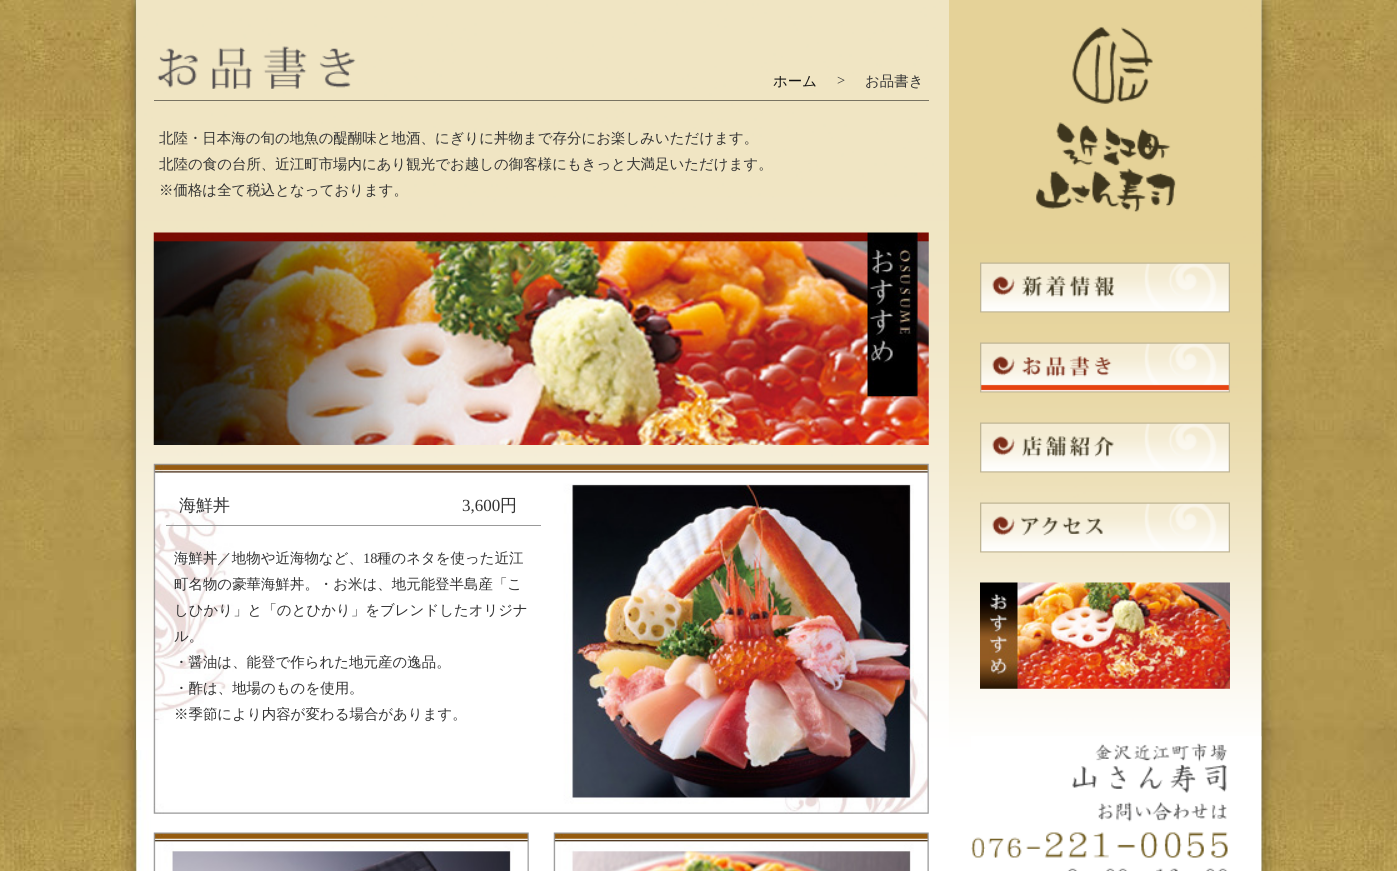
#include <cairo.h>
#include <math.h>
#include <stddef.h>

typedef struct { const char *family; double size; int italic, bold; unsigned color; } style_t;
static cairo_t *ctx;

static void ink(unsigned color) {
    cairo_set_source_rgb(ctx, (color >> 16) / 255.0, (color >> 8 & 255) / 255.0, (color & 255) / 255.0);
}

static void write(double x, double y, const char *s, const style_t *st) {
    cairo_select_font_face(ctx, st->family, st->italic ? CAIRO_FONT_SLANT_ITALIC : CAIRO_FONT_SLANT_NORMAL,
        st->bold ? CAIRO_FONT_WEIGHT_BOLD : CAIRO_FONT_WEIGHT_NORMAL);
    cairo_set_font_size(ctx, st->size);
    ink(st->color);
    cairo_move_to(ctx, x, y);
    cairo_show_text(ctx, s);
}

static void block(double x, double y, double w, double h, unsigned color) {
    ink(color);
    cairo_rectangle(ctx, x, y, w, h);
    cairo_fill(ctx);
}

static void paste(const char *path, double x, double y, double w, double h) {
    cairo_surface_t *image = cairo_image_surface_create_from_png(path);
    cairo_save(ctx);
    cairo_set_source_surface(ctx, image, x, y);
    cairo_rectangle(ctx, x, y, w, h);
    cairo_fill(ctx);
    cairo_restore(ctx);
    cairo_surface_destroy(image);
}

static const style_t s1 = {"WenQuanYi Zen Hei Medium", 14.45, 0, 0, 0x111111};
static const style_t s2 = {"Liberation Serif", 14.45, 0, 0, 0x333333};
static const style_t s3 = {"WenQuanYi Zen Hei Medium", 14.45, 0, 0, 0x333333};
static const style_t s4 = {"WenQuanYi Zen Hei Medium", 17, 0, 0, 0x333333};
static const style_t s5 = {"Liberation Serif", 17, 0, 0, 0x333333};

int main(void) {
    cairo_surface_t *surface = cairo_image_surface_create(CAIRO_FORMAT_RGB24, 1397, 871);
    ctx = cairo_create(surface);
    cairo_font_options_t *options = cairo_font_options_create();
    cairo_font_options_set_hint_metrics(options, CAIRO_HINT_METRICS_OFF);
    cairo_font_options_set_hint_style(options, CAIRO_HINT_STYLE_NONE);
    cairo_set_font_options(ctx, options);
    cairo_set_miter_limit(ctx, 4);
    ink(0xffffff);
    cairo_paint(ctx);
    paste("pic1.png", 0, 0, 1397, 871);
    paste("pic2.png", 111, 0, 1176, 871);
    paste("pic3.png", 136, 0, 813, 750);
    paste("pic4.png", 157, 46, 199, 43);
    block(154, 100, 775, 1, 0x787362);
    write(773, 86, "ホーム", &s1);
    write(837, 85, ">", &s2);
    write(865, 86, "お品書き", &s3);
    write(159, 143, "北陸・日本海の旬の地魚の醍醐味と地酒、にぎりに丼物まで存分にお楽しみいただけます。", &s3);
    write(159, 169, "北陸の食の台所、近江町市場内にあり観光でお越しの御客様にもきっと大満足いただけます。", &s3);
    write(159, 195, "※価格は全て税込となっております。", &s3);
    paste("pic5.png", 153, 232, 776, 213);
    paste("pic6.png", 153, 463, 776, 351);
    block(166, 525, 375, 1, 0x999999);
    write(179, 511, "海鮮丼", &s4);
    write(462, 511, "3,600", &s5);
    write(500, 511, "円", &s4);
    write(174, 563, "海鮮丼／地物や近海物など、", &s3);
    write(363, 563, "18", &s2);
    write(377, 563, "種のネタを使った近江", &s3);
    write(174, 589, "町名物の豪華海鮮丼。・お米は、地元能登半島産「こ", &s3);
    write(174, 615, "しひかり」と「のとひかり」をブレンドしたオリジナ", &s3);
    write(174, 641, "ル。", &s3);
    write(174, 667, "・醤油は、能登で作られた地元産の逸品。", &s3);
    write(174, 693, "・酢は、地場のものを使用。", &s3);
    write(174, 719, "※季節により内容が変わる場合があります。", &s3);
    paste("pic7.png", 153, 832, 376, 39);
    paste("pic8.png", 553, 832, 376, 39);
    paste("pic9.png", 948, 0, 314, 750);
    paste("pic10.png", 980, 262, 250, 51);
    paste("pic11.png", 980, 342, 250, 51);
    paste("pic12.png", 980, 422, 250, 51);
    paste("pic13.png", 980, 502, 250, 51);
    paste("pic14.png", 980, 582, 250, 107);
    paste("pic15.png", 971, 736, 291, 135);
    cairo_surface_write_to_png(surface, "screenshot.png");
    cairo_font_options_destroy(options);
    cairo_destroy(ctx);
    cairo_surface_destroy(surface);
    return 0;
}
